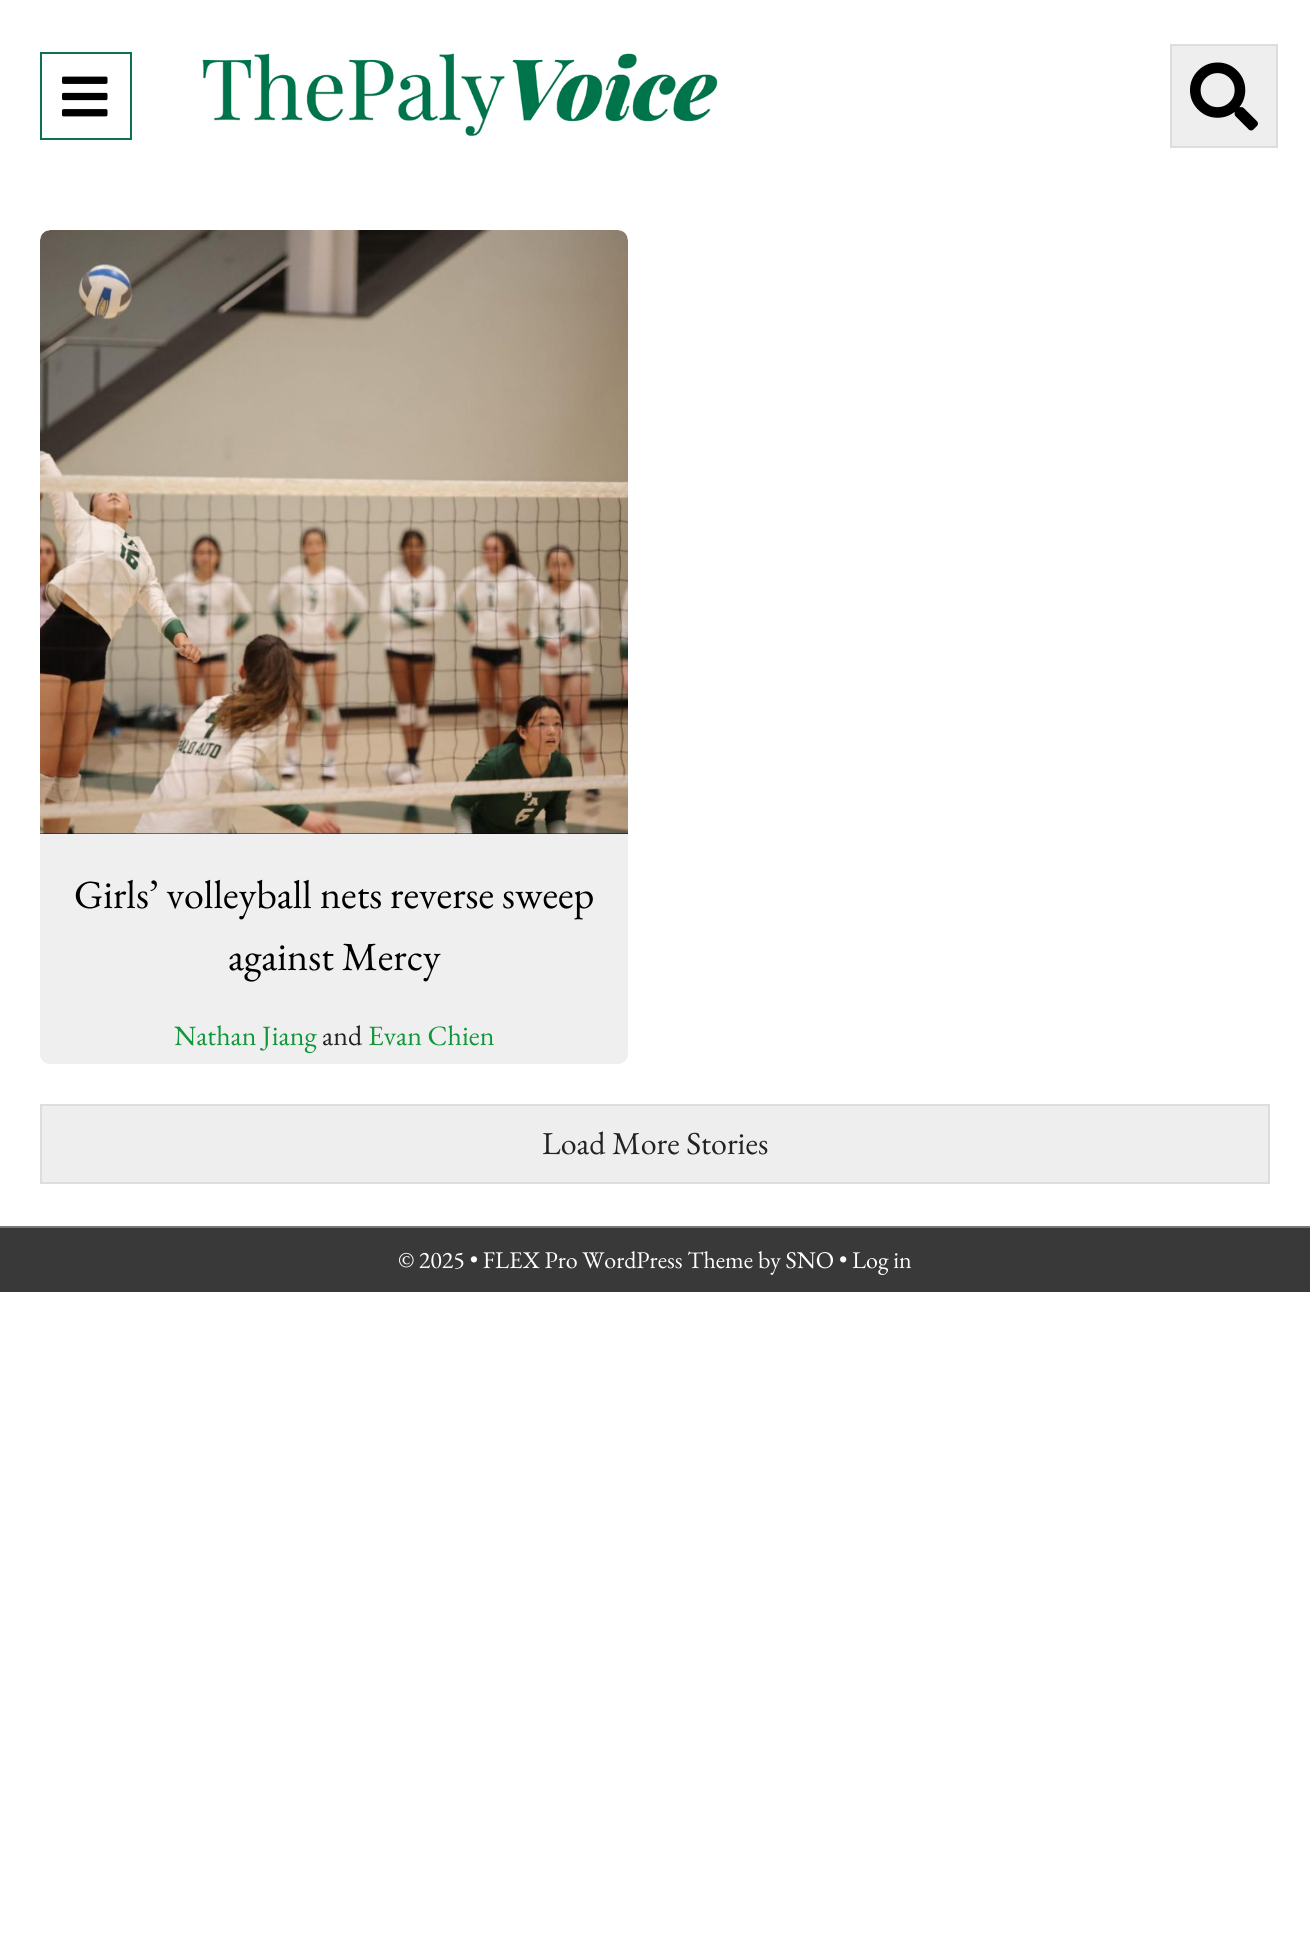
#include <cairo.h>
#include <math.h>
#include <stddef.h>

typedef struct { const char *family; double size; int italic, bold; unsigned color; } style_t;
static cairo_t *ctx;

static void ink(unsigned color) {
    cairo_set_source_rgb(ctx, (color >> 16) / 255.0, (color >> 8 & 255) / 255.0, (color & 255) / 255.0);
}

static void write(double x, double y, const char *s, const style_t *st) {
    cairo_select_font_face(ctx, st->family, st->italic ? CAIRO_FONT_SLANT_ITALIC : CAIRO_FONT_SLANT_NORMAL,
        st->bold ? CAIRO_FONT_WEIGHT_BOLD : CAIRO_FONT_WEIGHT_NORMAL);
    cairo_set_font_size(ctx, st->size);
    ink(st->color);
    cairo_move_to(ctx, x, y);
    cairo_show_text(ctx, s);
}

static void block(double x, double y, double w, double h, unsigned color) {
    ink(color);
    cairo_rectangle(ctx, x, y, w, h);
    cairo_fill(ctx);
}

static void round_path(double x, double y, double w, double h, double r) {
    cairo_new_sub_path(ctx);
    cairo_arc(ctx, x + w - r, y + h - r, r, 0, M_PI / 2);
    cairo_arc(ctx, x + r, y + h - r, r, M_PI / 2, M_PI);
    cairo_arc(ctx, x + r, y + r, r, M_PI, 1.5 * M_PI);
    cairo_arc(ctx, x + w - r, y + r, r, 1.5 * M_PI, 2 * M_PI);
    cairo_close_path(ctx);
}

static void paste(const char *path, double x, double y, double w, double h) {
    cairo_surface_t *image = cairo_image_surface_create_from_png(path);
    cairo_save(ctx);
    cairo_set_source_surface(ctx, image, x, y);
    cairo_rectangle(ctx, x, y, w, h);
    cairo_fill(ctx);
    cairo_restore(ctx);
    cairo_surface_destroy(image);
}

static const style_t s1 = {"EB Garamond", 40, 0, 0, 0x000000};
static const style_t s2 = {"EB Garamond", 28, 0, 0, 0x11973a};
static const style_t s3 = {"EB Garamond", 28, 0, 0, 0x222222};
static const style_t s4 = {"EB Garamond", 32, 0, 0, 0x222222};
static const style_t s5 = {"EB Garamond", 24, 0, 0, 0xffffff};

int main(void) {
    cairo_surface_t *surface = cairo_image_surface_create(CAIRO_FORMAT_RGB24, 1310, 1942);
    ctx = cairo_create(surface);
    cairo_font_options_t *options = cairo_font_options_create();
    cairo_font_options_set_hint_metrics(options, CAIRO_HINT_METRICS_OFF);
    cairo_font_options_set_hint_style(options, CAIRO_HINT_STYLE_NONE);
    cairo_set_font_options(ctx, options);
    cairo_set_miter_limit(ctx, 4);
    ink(0xffffff);
    cairo_paint(ctx);
    cairo_rectangle(ctx, 41, 53, 90, 86);
    ink(0x0d724d);
    cairo_stroke(ctx);
    paste("pic1.png", 62, 76, 46, 41);
    paste("pic2.png", 202, 53, 516, 84);
    ink(0xeeeeee);
    cairo_rectangle(ctx, 1171, 45, 106, 102);
    cairo_fill_preserve(ctx);
    ink(0xdddddd);
    cairo_stroke(ctx);
    paste("pic3.png", 1190, 62, 68, 69);
    ink(0xefefef);
    round_path(40, 230, 588, 834, 10);
    cairo_fill(ctx);
    ink(0xdddddd);
    cairo_new_path(ctx);
    cairo_move_to(ctx, 50, 230);
    cairo_line_to(ctx, 618, 230);
    cairo_curve_to(ctx, 623.5, 230, 628, 234.5, 628, 240);
    cairo_line_to(ctx, 628, 834);
    cairo_line_to(ctx, 40, 834);
    cairo_line_to(ctx, 40, 240);
    cairo_curve_to(ctx, 40, 234.5, 44.5, 230, 50, 230);
    cairo_close_path(ctx);
    cairo_fill(ctx);
    paste("pic4.png", 40, 230, 588, 604);
    write(74, 908, "Girls’ volleyball nets reverse sweep", &s1);
    write(228, 970, "against Mercy", &s1);
    write(174, 1045, "Nathan Jiang", &s2);
    write(322, 1045, "and", &s3);
    write(368, 1045, "Evan Chien", &s2);
    ink(0xeeeeee);
    cairo_rectangle(ctx, 41, 1105, 1228, 78);
    cairo_fill_preserve(ctx);
    ink(0xdddddd);
    cairo_stroke(ctx);
    write(542, 1154, "Load More Stories", &s4);
    block(0, 1228, 1310, 64, 0x393939);
    block(0, 1226, 1310, 2, 0x777777);
    write(398, 1268, "© 2025 • FLEX Pro WordPress Theme by SNO • Log in", &s5);
    cairo_surface_write_to_png(surface, "screenshot.png");
    cairo_font_options_destroy(options);
    cairo_destroy(ctx);
    cairo_surface_destroy(surface);
    return 0;
}
